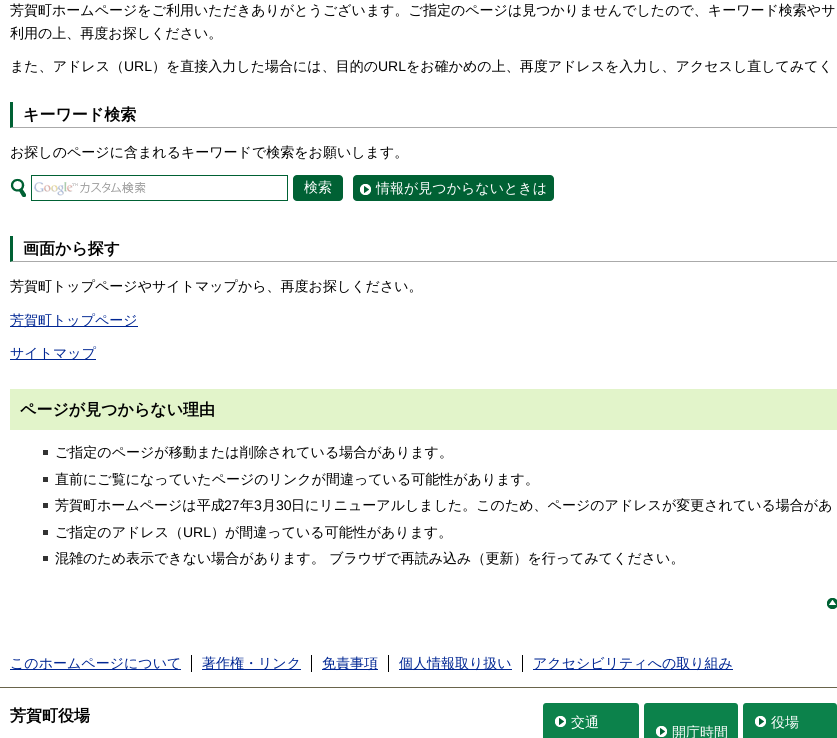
#include <cairo.h>
#include <math.h>
#include <stddef.h>

typedef struct { const char *family; double size; int italic, bold; unsigned color; } style_t;
static cairo_t *ctx;

static void ink(unsigned color) {
    cairo_set_source_rgb(ctx, (color >> 16) / 255.0, (color >> 8 & 255) / 255.0, (color & 255) / 255.0);
}

static void write(double x, double y, const char *s, const style_t *st) {
    cairo_select_font_face(ctx, st->family, st->italic ? CAIRO_FONT_SLANT_ITALIC : CAIRO_FONT_SLANT_NORMAL,
        st->bold ? CAIRO_FONT_WEIGHT_BOLD : CAIRO_FONT_WEIGHT_NORMAL);
    cairo_set_font_size(ctx, st->size);
    ink(st->color);
    cairo_move_to(ctx, x, y);
    cairo_show_text(ctx, s);
}

static void block(double x, double y, double w, double h, unsigned color) {
    ink(color);
    cairo_rectangle(ctx, x, y, w, h);
    cairo_fill(ctx);
}

static void round_path(double x, double y, double w, double h, double r) {
    cairo_new_sub_path(ctx);
    cairo_arc(ctx, x + w - r, y + h - r, r, 0, M_PI / 2);
    cairo_arc(ctx, x + r, y + h - r, r, M_PI / 2, M_PI);
    cairo_arc(ctx, x + r, y + r, r, M_PI, 1.5 * M_PI);
    cairo_arc(ctx, x + w - r, y + r, r, 1.5 * M_PI, 2 * M_PI);
    cairo_close_path(ctx);
}

static void paste(const char *path, double x, double y, double w, double h) {
    cairo_surface_t *image = cairo_image_surface_create_from_png(path);
    cairo_save(ctx);
    cairo_set_source_surface(ctx, image, x, y);
    cairo_rectangle(ctx, x, y, w, h);
    cairo_fill(ctx);
    cairo_restore(ctx);
    cairo_surface_destroy(image);
}

static const style_t s1 = {"WenQuanYi Zen Hei Medium", 14, 0, 0, 0x000000};
static const style_t s2 = {"Liberation Sans", 14, 0, 0, 0x000000};
static const style_t s3 = {"WenQuanYi Zen Hei", 16, 0, 1, 0x000000};
static const style_t s4 = {"WenQuanYi Zen Hei Medium", 14, 0, 0, 0xffffff};
static const style_t s5 = {"WenQuanYi Zen Hei Medium", 14, 0, 0, 0x002693};

int main(void) {
    cairo_surface_t *surface = cairo_image_surface_create(CAIRO_FORMAT_RGB24, 837, 738);
    ctx = cairo_create(surface);
    cairo_font_options_t *options = cairo_font_options_create();
    cairo_font_options_set_hint_metrics(options, CAIRO_HINT_METRICS_OFF);
    cairo_font_options_set_hint_style(options, CAIRO_HINT_STYLE_NONE);
    cairo_set_font_options(ctx, options);
    cairo_set_miter_limit(ctx, 4);
    ink(0xffffff);
    cairo_paint(ctx);
    write(10, 15, "芳賀町ホームページをご利用いただきありがとうございます。ご指定のページは見つかりませんでしたので、キーワード検索やサ", &s1);
    write(10, 38, "利用の上、再度お探しください。", &s1);
    write(10, 71, "また、アドレス（", &s1);
    write(124, 71, "URL", &s2);
    write(152, 71, "）を直接入力した場合には、目的の", &s1);
    write(378, 71, "URL", &s2);
    write(406, 71, "をお確かめの上、再度アドレスを入力し、アクセスし直してみてく", &s1);
    ink(0xaaaaaa);
    cairo_new_path(ctx);
    cairo_move_to(ctx, 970, 128);
    cairo_line_to(ctx, 10, 128);
    cairo_line_to(ctx, 13, 127);
    cairo_line_to(ctx, 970, 127);
    cairo_close_path(ctx);
    cairo_fill(ctx);
    ink(0x006134);
    cairo_new_path(ctx);
    cairo_move_to(ctx, 10, 128);
    cairo_line_to(ctx, 10, 102);
    cairo_line_to(ctx, 13, 102);
    cairo_line_to(ctx, 13, 127);
    cairo_close_path(ctx);
    cairo_fill(ctx);
    write(23, 120, "キーワード検索", &s3);
    write(10, 157, "お探しのページに含まれるキーワードで検索をお願いします。", &s1);
    paste("pic1.png", 10, 178, 16, 19);
    paste("pic2.png", 34, 182, 112, 14);
    cairo_rectangle(ctx, 31.5, 175.5, 256, 25);
    ink(0x006134);
    cairo_set_line_width(ctx, 1);
    cairo_stroke(ctx);
    round_path(293, 175, 50, 26, 4);
    cairo_fill(ctx);
    write(304, 192, "検索", &s4);
    ink(0x006134);
    round_path(353, 175, 201, 26, 4);
    cairo_fill(ctx);
    paste("pic3.png", 360, 184, 11, 11);
    write(376, 193, "情報が見つからないときは", &s4);
    ink(0xaaaaaa);
    cairo_new_path(ctx);
    cairo_move_to(ctx, 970, 262);
    cairo_line_to(ctx, 10, 262);
    cairo_line_to(ctx, 13, 261);
    cairo_line_to(ctx, 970, 261);
    cairo_close_path(ctx);
    cairo_fill(ctx);
    ink(0x006134);
    cairo_new_path(ctx);
    cairo_move_to(ctx, 10, 262);
    cairo_line_to(ctx, 10, 236);
    cairo_line_to(ctx, 13, 236);
    cairo_line_to(ctx, 13, 261);
    cairo_close_path(ctx);
    cairo_fill(ctx);
    write(23, 254, "画面から探す", &s3);
    write(10, 291, "芳賀町トップページやサイトマップから、再度お探しください。", &s1);
    block(10, 326, 128, 1, 0x002693);
    write(10, 325, "芳賀町トップページ", &s5);
    block(10, 359, 86, 1, 0x002693);
    write(10, 358, "サイトマップ", &s5);
    block(10, 389, 827, 41, 0xe2f4ca);
    write(20, 415, "ページが見つからない理由", &s3);
    block(43, 450, 5, 5, 0x333333);
    write(55, 457, "ご指定のページが移動または削除されている場合があります。", &s1);
    block(43, 477, 5, 5, 0x333333);
    write(55, 484, "直前にご覧になっていたページのリンクが間違っている可能性があります。", &s1);
    block(43, 503, 5, 5, 0x333333);
    write(55, 510, "芳賀町ホームページは平成", &s1);
    write(224, 510, "27", &s2);
    write(240, 510, "年", &s1);
    write(254, 510, "3", &s2);
    write(262, 510, "月", &s1);
    write(276, 510, "30", &s2);
    write(291, 510, "日にリニューアルしました。このため、ページのアドレスが変更されている場合があ", &s1);
    block(43, 530, 5, 5, 0x333333);
    write(55, 537, "ご指定のアドレス（", &s1);
    write(183, 537, "URL", &s2);
    write(211, 537, "）が間違っている可能性があります。", &s1);
    block(43, 556, 5, 5, 0x333333);
    write(55, 563, "混雑のため表示できない場合があります。 ブラウザで再読み込み（更新）を行ってみてください。", &s1);
    paste("pic4.png", 827, 598, 10, 11);
    block(0, 687, 837, 1, 0x69644b);
    block(191, 655, 1, 17, 0x000000);
    block(10, 669, 171, 1, 0x002693);
    write(10, 668, "このホームページについて", &s5);
    block(311, 655, 1, 17, 0x000000);
    block(202, 669, 99, 1, 0x002693);
    write(202, 668, "著作権・リンク", &s5);
    block(388, 655, 1, 17, 0x000000);
    block(322, 669, 56, 1, 0x002693);
    write(322, 668, "免責事項", &s5);
    block(522, 655, 1, 17, 0x000000);
    block(399, 669, 113, 1, 0x002693);
    write(399, 668, "個人情報取り扱い", &s5);
    block(533, 669, 200, 1, 0x002693);
    write(533, 668, "アクセシビリティへの取り組み", &s5);
    write(10, 721, "芳賀町役場", &s3);
    ink(0x0c824b);
    round_path(543, 703, 96, 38, 3);
    cairo_fill(ctx);
    paste("pic5.png", 555, 716, 11, 11);
    write(571, 727, "交通", &s4);
    ink(0x0c824b);
    round_path(743, 703, 94, 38, 3);
    cairo_fill(ctx);
    paste("pic5.png", 755, 716, 11, 11);
    write(771, 727, "役場", &s4);
    ink(0x0c824b);
    round_path(644, 703, 94, 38, 3);
    cairo_fill(ctx);
    paste("pic5.png", 656, 726, 11, 11);
    write(672, 737, "開庁時間", &s4);
    cairo_surface_write_to_png(surface, "screenshot.png");
    cairo_font_options_destroy(options);
    cairo_destroy(ctx);
    cairo_surface_destroy(surface);
    return 0;
}
